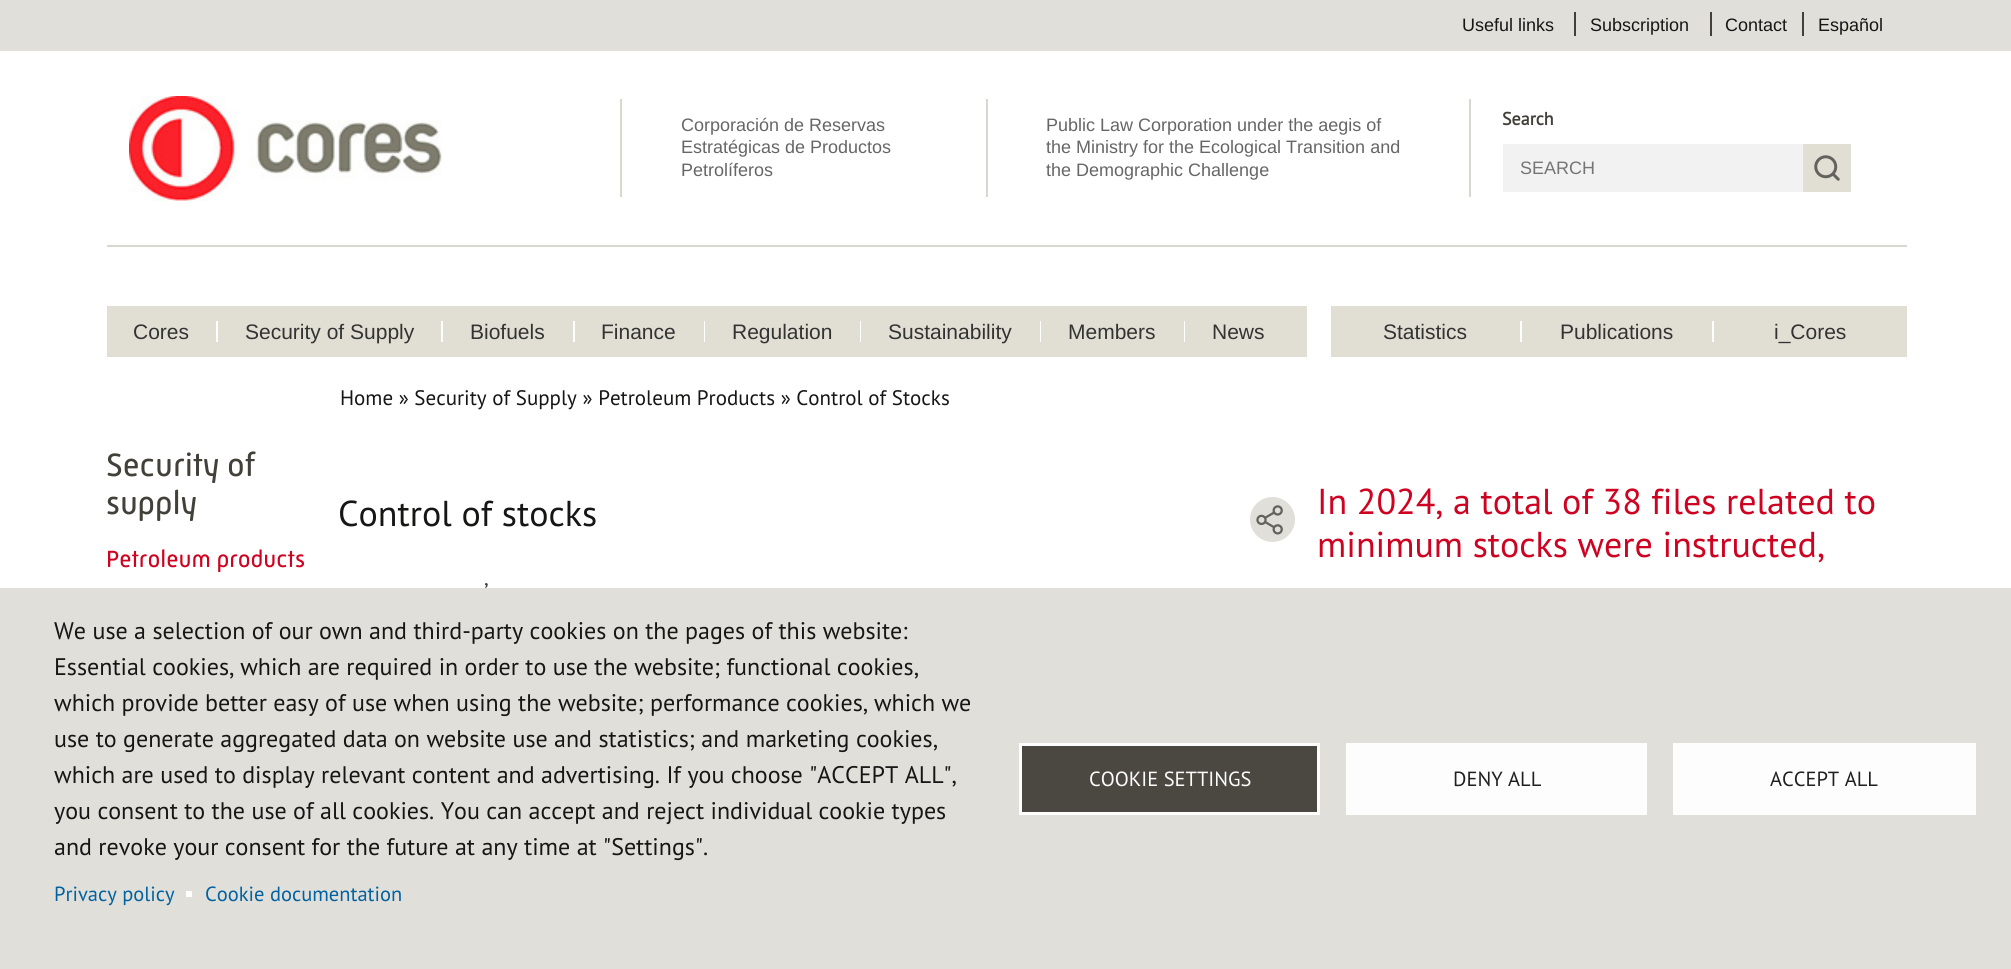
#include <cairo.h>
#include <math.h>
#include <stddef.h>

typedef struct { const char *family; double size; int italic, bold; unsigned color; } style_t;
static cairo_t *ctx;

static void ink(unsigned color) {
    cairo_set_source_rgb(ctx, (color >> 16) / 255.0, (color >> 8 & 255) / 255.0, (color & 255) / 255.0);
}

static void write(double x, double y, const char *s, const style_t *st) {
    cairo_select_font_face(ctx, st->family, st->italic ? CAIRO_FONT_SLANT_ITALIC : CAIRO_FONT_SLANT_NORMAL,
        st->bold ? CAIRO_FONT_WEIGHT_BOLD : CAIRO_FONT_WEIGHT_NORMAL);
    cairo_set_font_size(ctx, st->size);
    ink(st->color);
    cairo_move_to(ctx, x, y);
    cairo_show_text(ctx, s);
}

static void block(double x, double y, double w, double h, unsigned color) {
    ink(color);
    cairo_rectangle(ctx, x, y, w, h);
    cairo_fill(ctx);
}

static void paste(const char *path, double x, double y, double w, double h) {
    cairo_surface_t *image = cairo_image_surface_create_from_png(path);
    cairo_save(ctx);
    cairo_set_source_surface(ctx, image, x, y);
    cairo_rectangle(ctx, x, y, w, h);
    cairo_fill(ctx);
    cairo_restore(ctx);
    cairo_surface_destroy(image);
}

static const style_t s1 = {"Liberation Sans", 18, 0, 0, 0x161615};
static const style_t s2 = {"Liberation Sans", 18, 0, 0, 0x666666};
static const style_t s3 = {"PT Sans", 18, 0, 1, 0x424039};
static const style_t s4 = {"Liberation Sans", 18, 0, 0, 0x757575};
static const style_t s5 = {"Liberation Sans", 21, 0, 0, 0x333333};
static const style_t s6 = {"PT Sans", 21, 0, 0, 0x161615};
static const style_t s7 = {"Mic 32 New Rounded", 33, 0, 0, 0x424039};
static const style_t s8 = {"Mic 32 New Rounded", 24, 0, 0, 0xce0221};
static const style_t s9 = {"PT Sans", 36, 0, 0, 0x161615};
static const style_t s10 = {"PT Sans", 24, 0, 0, 0x424039};
static const style_t s11 = {"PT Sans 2", 36, 0, 0, 0xce0221};
static const style_t s12 = {"PT Sans", 24, 0, 0, 0x161615};
static const style_t s13 = {"PT Sans", 20.5, 0, 0, 0x0062a0};
static const style_t s14 = {"PT Sans", 20.5, 0, 0, 0xfefdfd};
static const style_t s15 = {"PT Sans", 20.5, 0, 0, 0x20201f};

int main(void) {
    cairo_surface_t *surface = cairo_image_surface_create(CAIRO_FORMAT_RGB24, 2011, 969);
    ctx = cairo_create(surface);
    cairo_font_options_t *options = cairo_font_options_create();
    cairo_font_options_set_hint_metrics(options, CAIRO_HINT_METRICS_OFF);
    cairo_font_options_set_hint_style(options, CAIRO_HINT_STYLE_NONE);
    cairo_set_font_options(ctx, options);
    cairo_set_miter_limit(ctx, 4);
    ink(0xffffff);
    cairo_paint(ctx);
    block(0, 0, 2011, 51, 0xe1dfda);
    block(1574, 12, 2, 24, 0x424039);
    write(1462, 31, "Useful links", &s1);
    block(1710, 12, 2, 24, 0x424039);
    write(1590, 31, "Subscription", &s1);
    block(1802, 12, 2, 24, 0x424039);
    write(1725, 31, "Contact", &s1);
    write(1818, 31, "Español", &s1);
    block(107, 245, 1800, 2, 0xd8d8ce);
    paste("pic1.png", 129, 96, 313, 105);
    block(620, 99, 2, 98, 0xd8d8ce);
    write(681, 131, "Corporación de Reservas", &s2);
    write(681, 153, "Estratégicas de Productos", &s2);
    write(681, 176, "Petrolíferos", &s2);
    block(1469, 99, 2, 98, 0xd8d8ce);
    block(986, 99, 2, 98, 0xd8d8ce);
    write(1046, 131, "Public Law Corporation under the aegis of", &s2);
    write(1046, 153, "the Ministry for the Ecological Transition and", &s2);
    write(1046, 176, "the Demographic Challenge", &s2);
    write(1502, 125, "Search", &s3);
    block(1503, 144, 300, 48, 0xf2f2f2);
    write(1520, 174, "SEARCH", &s4);
    block(1803, 144, 48, 48, 0xe1dfd4);
    paste("pic2.png", 1814, 155, 26, 26);
    block(107, 306, 1200, 51, 0xe1dfd4);
    block(216, 321, 2, 21, 0xffffff);
    write(133, 339, "Cores", &s5);
    block(441, 321, 2, 21, 0xffffff);
    write(245, 339, "Security of Supply", &s5);
    block(573, 321, 2, 21, 0xffffff);
    write(470, 339, "Biofuels", &s5);
    block(704, 321, 1, 21, 0xffffff);
    write(601, 339, "Finance", &s5);
    block(860, 321, 1, 21, 0xffffff);
    write(732, 339, "Regulation", &s5);
    block(1040, 321, 1, 21, 0xffffff);
    write(888, 339, "Sustainability", &s5);
    block(1184, 321, 1, 21, 0xffffff);
    write(1068, 339, "Members", &s5);
    write(1212, 339, "News", &s5);
    block(1331, 306, 576, 51, 0xe1dfd4);
    block(1520, 321, 2, 21, 0xffffff);
    write(1383, 339, "Statistics", &s5);
    block(1712, 321, 2, 21, 0xffffff);
    write(1560, 339, "Publications", &s5);
    write(1774, 339, "i_Cores", &s5);
    write(340, 405, "Home » Security of Supply » Petroleum Products » Control of Stocks", &s6);
    write(106, 476, "Security of", &s7);
    write(106, 514, "supply", &s7);
    write(106, 567, "Petroleum products", &s8);
    write(338, 526, "Control of stocks", &s9);
    ink(0xe1dfda);
    cairo_new_path(ctx);
    cairo_arc(ctx, 1272.5, 519.5, 22.5, 0, 2 * M_PI);
    cairo_fill(ctx);
    paste("pic3.png", 1256, 505, 27, 30);
    write(484, 600, "’", &s10);
    write(1317, 514, "In 2024, a total of 38 files related to", &s11);
    write(1317, 557, "minimum stocks were instructed,", &s11);
    block(0, 588, 2011, 381, 0xe1dfda);
    write(54, 639, "We use a selection of our own and third-party cookies on the pages of this website:", &s12);
    write(54, 675, "Essential cookies, which are required in order to use the website; functional cookies,", &s12);
    write(54, 711, "which provide better easy of use when using the website; performance cookies, which we", &s12);
    write(54, 747, "use to generate aggregated data on website use and statistics; and marketing cookies,", &s12);
    write(54, 783, "which are used to display relevant content and advertising. If you choose \"ACCEPT ALL\",", &s12);
    write(54, 819, "you consent to the use of all cookies. You can accept and reject individual cookie types", &s12);
    write(54, 855, "and revoke your consent for the future at any time at \"Settings\".", &s12);
    write(54, 901, "Privacy policy", &s13);
    block(186, 891, 6, 6, 0xffffff);
    write(205, 901, "Cookie documentation", &s13);
    ink(0x4a4841);
    cairo_rectangle(ctx, 1020.5, 744.5, 298, 69);
    cairo_fill_preserve(ctx);
    ink(0xfefdfd);
    cairo_set_line_width(ctx, 3);
    cairo_stroke(ctx);
    write(1089, 786, "COOKIE SETTINGS", &s14);
    block(1346, 743, 301, 72, 0xfefdfd);
    write(1453, 786, "DENY ALL", &s15);
    block(1673, 743, 303, 72, 0xfefdfd);
    write(1770, 786, "ACCEPT ALL", &s15);
    cairo_surface_write_to_png(surface, "screenshot.png");
    cairo_font_options_destroy(options);
    cairo_destroy(ctx);
    cairo_surface_destroy(surface);
    return 0;
}
